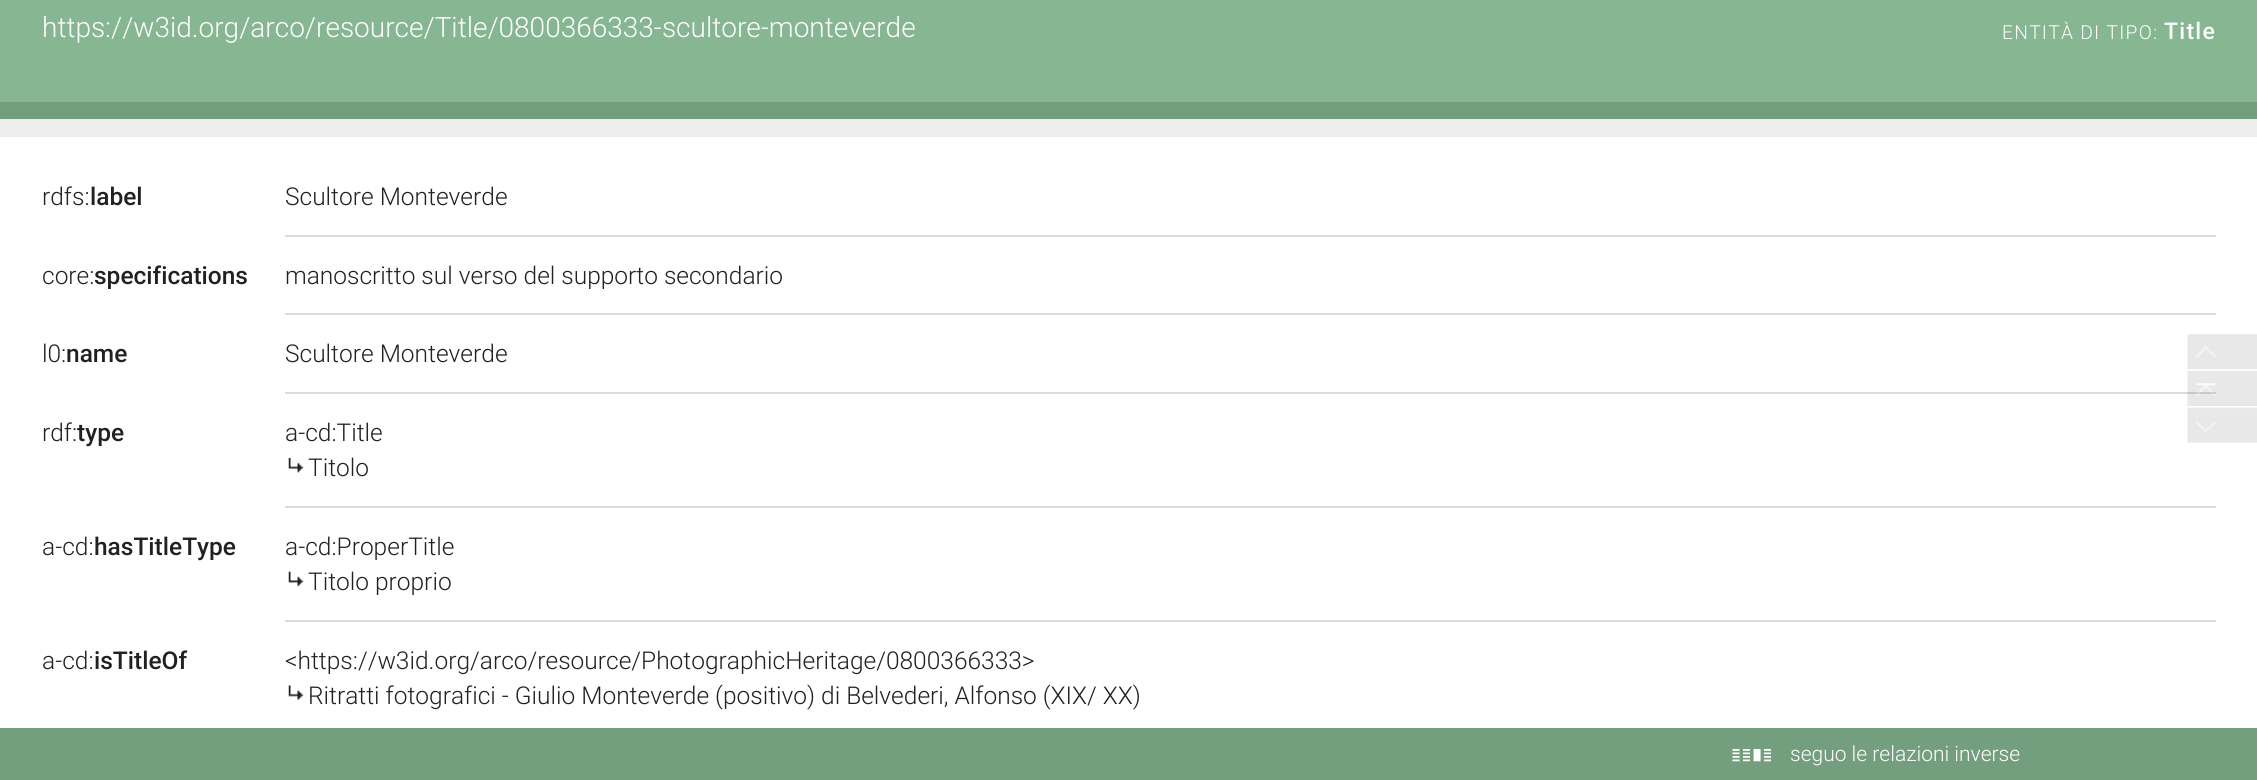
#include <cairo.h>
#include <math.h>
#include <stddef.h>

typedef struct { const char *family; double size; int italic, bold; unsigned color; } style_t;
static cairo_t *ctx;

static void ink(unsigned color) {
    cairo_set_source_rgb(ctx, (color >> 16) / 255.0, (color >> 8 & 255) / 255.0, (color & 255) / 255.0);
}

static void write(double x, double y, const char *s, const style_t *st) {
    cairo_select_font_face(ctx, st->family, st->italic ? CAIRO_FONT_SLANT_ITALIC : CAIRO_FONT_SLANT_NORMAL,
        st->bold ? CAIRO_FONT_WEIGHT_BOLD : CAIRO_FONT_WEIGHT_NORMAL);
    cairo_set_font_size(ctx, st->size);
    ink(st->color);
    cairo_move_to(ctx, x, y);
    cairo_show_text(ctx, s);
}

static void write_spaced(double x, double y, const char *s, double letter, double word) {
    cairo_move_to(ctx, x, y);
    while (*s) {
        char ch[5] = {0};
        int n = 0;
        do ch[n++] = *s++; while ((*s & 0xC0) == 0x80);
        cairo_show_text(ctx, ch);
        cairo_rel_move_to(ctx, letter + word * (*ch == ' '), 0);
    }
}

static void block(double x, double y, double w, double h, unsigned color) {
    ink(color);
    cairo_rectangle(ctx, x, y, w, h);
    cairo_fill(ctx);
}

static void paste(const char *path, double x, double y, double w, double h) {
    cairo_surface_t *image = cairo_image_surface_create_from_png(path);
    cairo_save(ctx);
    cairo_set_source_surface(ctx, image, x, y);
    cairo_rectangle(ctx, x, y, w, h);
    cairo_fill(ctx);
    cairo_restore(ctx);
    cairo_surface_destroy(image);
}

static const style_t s1 = {"Roboto Light", 28, 0, 0, 0xffffff};
static const style_t s2 = {"Roboto Light", 24.5, 0, 0, 0x212121};
static const style_t s3 = {"Roboto Medium", 24.5, 0, 0, 0x212121};
static const style_t s4 = {"Roboto Light", 21, 0, 0, 0xffffff};

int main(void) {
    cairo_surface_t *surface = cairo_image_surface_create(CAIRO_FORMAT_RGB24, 2257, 780);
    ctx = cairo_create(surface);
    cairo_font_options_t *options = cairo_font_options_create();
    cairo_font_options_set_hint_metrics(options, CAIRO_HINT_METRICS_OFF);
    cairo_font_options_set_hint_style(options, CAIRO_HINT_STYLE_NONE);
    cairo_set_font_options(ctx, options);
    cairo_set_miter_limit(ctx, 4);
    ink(0x86b692);
    cairo_paint(ctx);
    write(42, 37, "https://w3id.org/arco/resource/Title/0800366333-scultore-monteverde", &s1);
    cairo_set_font_size(ctx, 19.25);
    write_spaced(2002, 39, "ENTITÀ DI TIPO:", 1.25, 0);
    cairo_select_font_face(ctx, "Roboto Medium", CAIRO_FONT_SLANT_NORMAL, CAIRO_FONT_WEIGHT_NORMAL);
    cairo_set_font_size(ctx, 23);
    write_spaced(2164, 39, "Title", 1.25, 0);
    block(0, 102, 2257, 17, 0x749f7e);
    block(0, 119, 2257, 18, 0xeeeeee);
    block(0, 137, 2257, 591, 0xffffff);
    write(42, 205, "rdfs:", &s2);
    write(90, 205, "label", &s3);
    block(285, 235, 1931, 2, 0xdbdbdb);
    write(285, 205, "Scultore Monteverde", &s2);
    write(42, 284, "core:", &s2);
    write(94, 284, "specifications", &s3);
    block(285, 313, 1931, 2, 0xdbdbdb);
    write(285, 284, "manoscritto sul verso del supporto secondario", &s2);
    write(42, 362, "l0:", &s2);
    write(66, 362, "name", &s3);
    block(285, 392, 1931, 2, 0xdbdbdb);
    write(285, 362, "Scultore Monteverde", &s2);
    write(42, 441, "rdf:", &s2);
    write(77, 441, "type", &s3);
    block(285, 506, 1931, 2, 0xdbdbdb);
    write(285, 441, "a-cd:Title", &s2);
    paste("pic1.png", 288, 458, 16, 15);
    write(308, 476, "Titolo", &s2);
    write(42, 555, "a-cd:", &s2);
    write(94, 555, "hasTitleType", &s3);
    block(285, 620, 1931, 2, 0xdbdbdb);
    write(285, 555, "a-cd:ProperTitle", &s2);
    paste("pic2.png", 288, 571, 16, 16);
    write(308, 590, "Titolo proprio", &s2);
    write(42, 669, "a-cd:", &s2);
    write(94, 669, "isTitleOf", &s3);
    write(285, 669, "<https://w3id.org/arco/resource/PhotographicHeritage/0800366333>", &s2);
    paste("pic3.png", 288, 685, 16, 15);
    write(308, 704, "Ritratti fotografici - Giulio Monteverde (positivo) di Belvederi, Alfonso (XIX/ XX)", &s2);
    paste("pic4.png", 2187, 334, 70, 36);
    paste("pic5.png", 2187, 371, 70, 35);
    paste("pic6.png", 2187, 407, 70, 36);
    block(0, 728, 2257, 52, 0x749f7e);
    paste("pic7.png", 1732, 749, 39, 13);
    write(1790, 761, "seguo le relazioni inverse", &s4);
    cairo_surface_write_to_png(surface, "screenshot.png");
    cairo_font_options_destroy(options);
    cairo_destroy(ctx);
    cairo_surface_destroy(surface);
    return 0;
}
